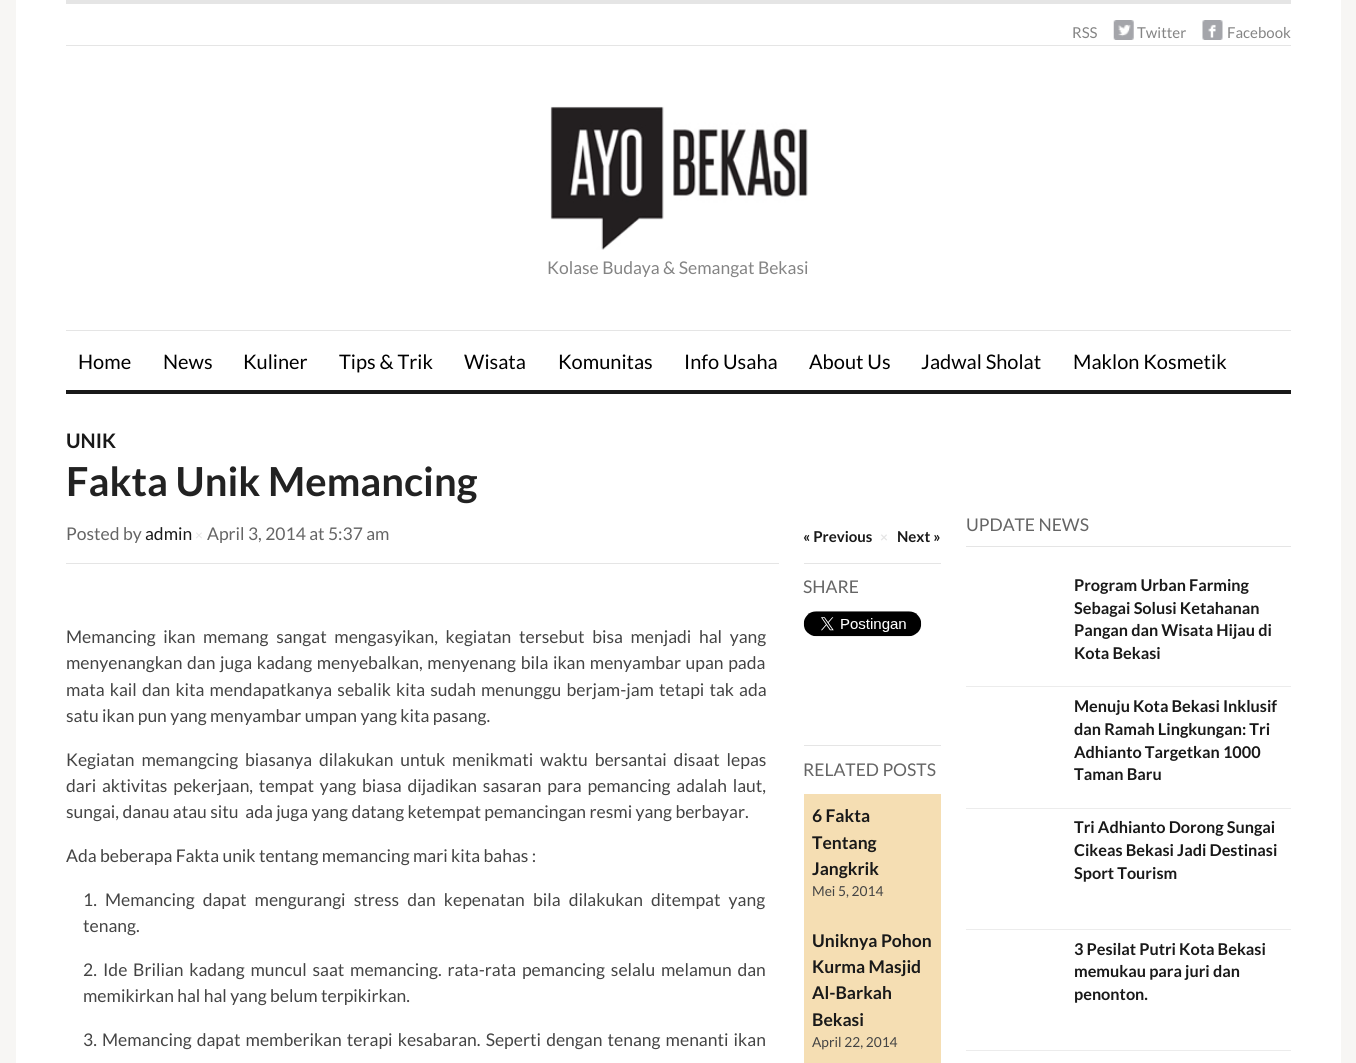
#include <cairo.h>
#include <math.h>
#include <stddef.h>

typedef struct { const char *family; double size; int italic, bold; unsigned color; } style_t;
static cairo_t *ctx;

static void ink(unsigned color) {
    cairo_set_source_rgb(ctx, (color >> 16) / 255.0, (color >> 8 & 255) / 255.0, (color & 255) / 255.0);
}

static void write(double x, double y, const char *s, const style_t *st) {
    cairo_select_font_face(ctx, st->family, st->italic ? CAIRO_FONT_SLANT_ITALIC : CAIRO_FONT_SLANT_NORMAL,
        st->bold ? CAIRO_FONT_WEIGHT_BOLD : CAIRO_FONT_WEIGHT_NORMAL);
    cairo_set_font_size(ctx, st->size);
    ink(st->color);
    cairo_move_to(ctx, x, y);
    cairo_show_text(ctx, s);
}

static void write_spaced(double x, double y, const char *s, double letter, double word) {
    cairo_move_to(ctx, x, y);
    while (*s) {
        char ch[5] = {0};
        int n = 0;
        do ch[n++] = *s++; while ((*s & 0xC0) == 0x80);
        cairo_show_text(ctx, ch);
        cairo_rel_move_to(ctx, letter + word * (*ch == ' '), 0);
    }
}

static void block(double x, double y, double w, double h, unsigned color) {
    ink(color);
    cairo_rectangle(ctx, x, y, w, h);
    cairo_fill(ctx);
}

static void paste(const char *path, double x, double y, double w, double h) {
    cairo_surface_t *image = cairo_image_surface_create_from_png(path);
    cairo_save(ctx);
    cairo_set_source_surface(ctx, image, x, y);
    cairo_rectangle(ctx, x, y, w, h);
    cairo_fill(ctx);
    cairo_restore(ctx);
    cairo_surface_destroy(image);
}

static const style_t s1 = {"Lato", 15, 0, 0, 0x848484};
static const style_t s2 = {"Lato", 17.5, 0, 0, 0x848484};
static const style_t s3 = {"Lato", 20, 0, 0, 0x000000};
static const style_t s4 = {"Lato", 20, 0, 1, 0x191919};
static const style_t s5 = {"Lato", 40, 0, 1, 0x222222};
static const style_t s6 = {"Lato", 17.5, 0, 0, 0x656565};
static const style_t s7 = {"Lato", 17.5, 0, 0, 0x191919};
static const style_t s8 = {"Lato", 13.75, 0, 0, 0xe5e5e5};
static const style_t s9 = {"Lato", 17.5, 0, 0, 0x444444};
static const style_t s10 = {"Lato", 15, 0, 1, 0x191919};
static const style_t s11 = {"Lato", 13.75, 0, 1, 0xe5e5e5};
static const style_t s12 = {"Lato", 17.5, 0, 1, 0x191919};
static const style_t s13 = {"Lato", 13.75, 0, 0, 0x444444};
static const style_t s14 = {"Lato", 16.25, 0, 1, 0x191919};

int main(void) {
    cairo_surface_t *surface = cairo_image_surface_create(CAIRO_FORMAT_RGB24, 1356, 1063);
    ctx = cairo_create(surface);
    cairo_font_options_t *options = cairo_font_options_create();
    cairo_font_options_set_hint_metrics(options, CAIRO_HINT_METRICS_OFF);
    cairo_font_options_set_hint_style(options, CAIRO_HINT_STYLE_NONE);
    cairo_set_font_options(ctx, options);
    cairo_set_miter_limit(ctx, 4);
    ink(0xf7f6f4);
    cairo_paint(ctx);
    block(16, 0, 1325, 1063, 0xffffff);
    block(66, 0, 1225, 4, 0xe5e5e5);
    block(66, 45, 1225, 1, 0xe5e5e5);
    write(1072, 38, "RSS", &s1);
    paste("pic1.png", 1113, 20, 21, 20);
    write(1137, 38, "Twitter", &s1);
    paste("pic2.png", 1202, 20, 21, 20);
    write(1227, 38, "Facebook", &s1);
    paste("pic3.png", 550, 106, 258, 144);
    write(547, 274, "Kolase Budaya & Semangat Bekasi", &s2);
    block(66, 330, 1225, 1, 0xe5e5e5);
    block(66, 390, 1225, 4, 0x191919);
    write(78, 369, "Home", &s3);
    write(163, 369, "News", &s3);
    write(243, 369, "Kuliner", &s3);
    write(339, 369, "Tips & Trik", &s3);
    write(464, 369, "Wisata", &s3);
    write(558, 369, "Komunitas", &s3);
    write(684, 369, "Info Usaha", &s3);
    write(809, 369, "About Us", &s3);
    write(921, 369, "Jadwal Sholat", &s3);
    write(1073, 369, "Maklon Kosmetik", &s3);
    write(66, 448, "UNIK", &s4);
    write(66, 496, "Fakta Unik Memancing", &s5);
    block(66, 563, 713, 1, 0xe5e5e5);
    write(66, 540, "Posted by", &s6);
    write(145, 540, "admin", &s7);
    write(195, 540, "×", &s8);
    write(207, 540, "April 3, 2014 at 5:37 am", &s6);
    ink(0x444444);
    write_spaced(66, 643, "Memancing ikan memang sangat mengasyikan, kegiatan tersebut bisa menjadi hal yang", 0, 4.25);
    write_spaced(66, 669, "menyenangkan dan juga kadang menyebalkan, menyenang bila ikan menyambar upan pada", 0, 1.25);
    write_spaced(66, 696, "mata kail dan kita mendapatkanya sebalik kita sudah menunggu berjam-jam tetapi tak ada", 0, 1.75);
    write(66, 722, "satu ikan pun yang menyambar umpan yang kita pasang.", &s9);
    write_spaced(66, 766, "Kegiatan memangcing biasanya dilakukan untuk menikmati waktu bersantai disaat lepas", 0, 3.5);
    write_spaced(66, 792, "dari aktivitas pekerjaan, tempat yang biasa dijadikan sasaran para pemancing adalah laut,", 0, 2.4);
    write(66, 818, "sungai, danau atau situ  ada juga yang datang ketempat pemancingan resmi yang berbayar.", &s9);
    write(66, 862, "Ada beberapa Fakta unik tentang memancing mari kita bahas :", &s9);
    write(83, 906, "1.", &s9);
    write_spaced(105, 906, "Memancing dapat mengurangi stress dan kepenatan bila dilakukan ditempat yang", 0, 4.75);
    write(83, 932, "tenang.", &s9);
    write(83, 976, "2.", &s9);
    write_spaced(103, 976, "Ide Brilian kadang muncul saat memancing. rata-rata pemancing selalu melamun dan", 0, 2.4);
    write(83, 1002, "memikirkan hal hal yang belum terpikirkan.", &s9);
    write(83, 1046, "3.", &s9);
    write_spaced(102, 1046, "Memancing dapat memberikan terapi kesabaran. Seperti dengan tenang menanti ikan", 0, 1.75);
    write(803, 542, "« Previous", &s10);
    write(880, 542, "×", &s11);
    write(897, 542, "Next »", &s10);
    block(804, 563, 137, 1, 0xe5e5e5);
    write(803, 593, "SHARE", &s6);
    paste("pic4.png", 803, 611, 119, 26);
    block(804, 745, 137, 1, 0xe5e5e5);
    write(803, 776, "RELATED POSTS", &s6);
    block(804, 794, 137, 269, 0xf5deb3);
    write(812, 822, "6 Fakta", &s12);
    write(812, 849, "Tentang", &s12);
    write(812, 875, "Jangkrik", &s12);
    write(812, 896, "Mei 5, 2014", &s13);
    write(812, 947, "Uniknya Pohon", &s12);
    write(812, 973, "Kurma Masjid", &s12);
    write(812, 999, "Al-Barkah", &s12);
    write(812, 1026, "Bekasi", &s12);
    write(812, 1047, "April 22, 2014", &s13);
    block(966, 546, 325, 1, 0xe5e5e5);
    write(966, 531, "UPDATE NEWS", &s6);
    block(966, 686, 325, 1, 0xececec);
    write(1074, 591, "Program Urban Farming", &s14);
    write(1074, 614, "Sebagai Solusi Ketahanan", &s14);
    write(1074, 636, "Pangan dan Wisata Hijau di", &s14);
    write(1074, 659, "Kota Bekasi", &s14);
    block(966, 808, 325, 1, 0xececec);
    write(1074, 712, "Menuju Kota Bekasi Inklusif", &s14);
    write(1074, 735, "dan Ramah Lingkungan: Tri", &s14);
    write(1074, 758, "Adhianto Targetkan 1000", &s14);
    write(1074, 780, "Taman Baru", &s14);
    block(966, 929, 325, 1, 0xececec);
    write(1074, 833, "Tri Adhianto Dorong Sungai", &s14);
    write(1074, 856, "Cikeas Bekasi Jadi Destinasi", &s14);
    write(1074, 879, "Sport Tourism", &s14);
    block(966, 1050, 325, 1, 0xececec);
    write(1074, 955, "3 Pesilat Putri Kota Bekasi", &s14);
    write(1074, 977, "memukau para juri dan", &s14);
    write(1074, 1000, "penonton.", &s14);
    cairo_surface_write_to_png(surface, "screenshot.png");
    cairo_font_options_destroy(options);
    cairo_destroy(ctx);
    cairo_surface_destroy(surface);
    return 0;
}
